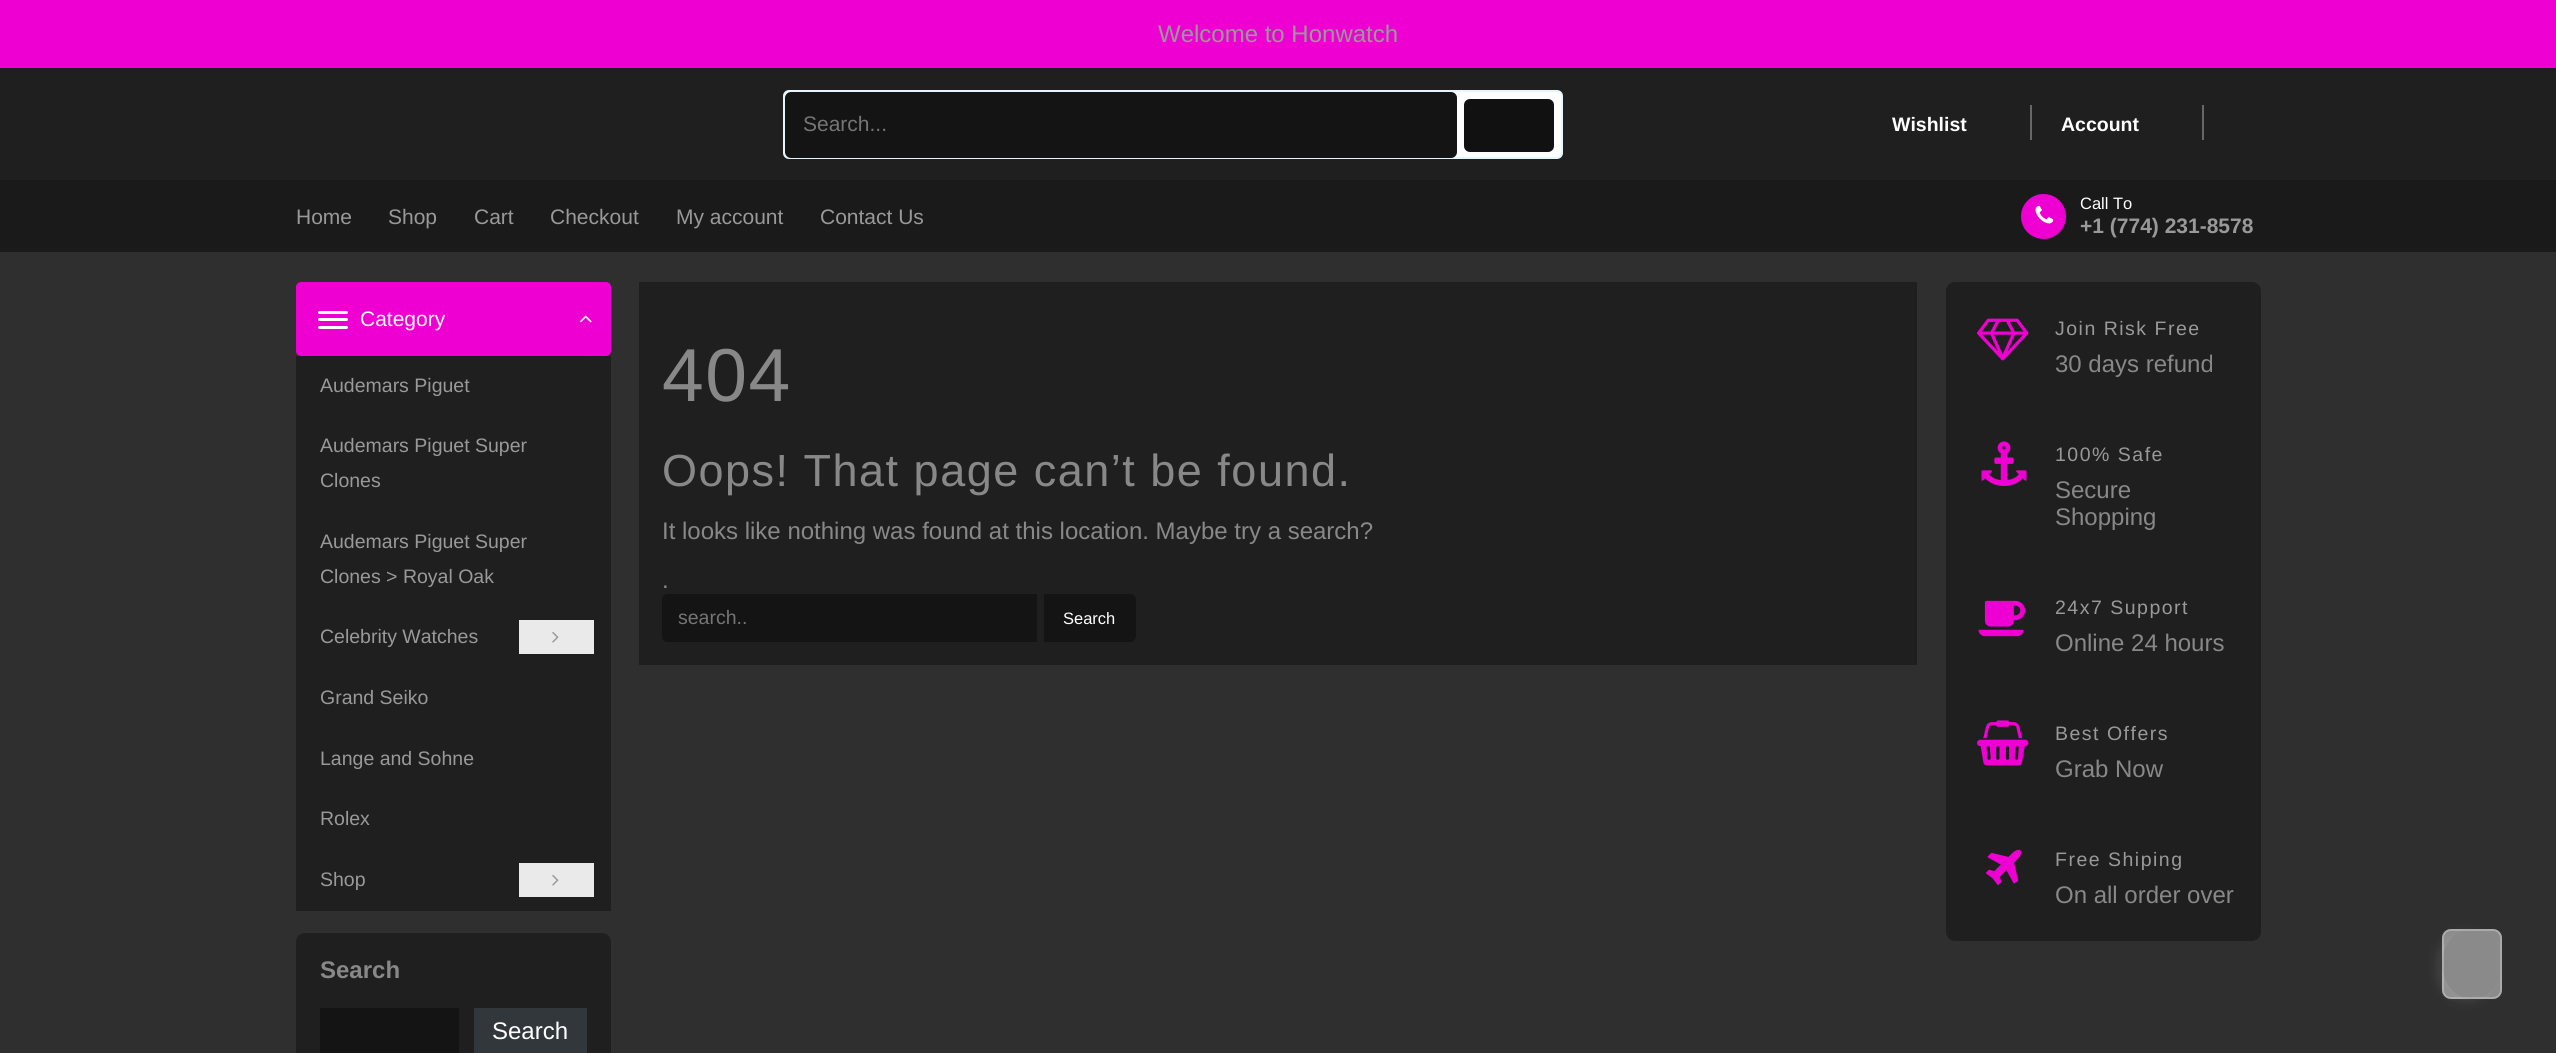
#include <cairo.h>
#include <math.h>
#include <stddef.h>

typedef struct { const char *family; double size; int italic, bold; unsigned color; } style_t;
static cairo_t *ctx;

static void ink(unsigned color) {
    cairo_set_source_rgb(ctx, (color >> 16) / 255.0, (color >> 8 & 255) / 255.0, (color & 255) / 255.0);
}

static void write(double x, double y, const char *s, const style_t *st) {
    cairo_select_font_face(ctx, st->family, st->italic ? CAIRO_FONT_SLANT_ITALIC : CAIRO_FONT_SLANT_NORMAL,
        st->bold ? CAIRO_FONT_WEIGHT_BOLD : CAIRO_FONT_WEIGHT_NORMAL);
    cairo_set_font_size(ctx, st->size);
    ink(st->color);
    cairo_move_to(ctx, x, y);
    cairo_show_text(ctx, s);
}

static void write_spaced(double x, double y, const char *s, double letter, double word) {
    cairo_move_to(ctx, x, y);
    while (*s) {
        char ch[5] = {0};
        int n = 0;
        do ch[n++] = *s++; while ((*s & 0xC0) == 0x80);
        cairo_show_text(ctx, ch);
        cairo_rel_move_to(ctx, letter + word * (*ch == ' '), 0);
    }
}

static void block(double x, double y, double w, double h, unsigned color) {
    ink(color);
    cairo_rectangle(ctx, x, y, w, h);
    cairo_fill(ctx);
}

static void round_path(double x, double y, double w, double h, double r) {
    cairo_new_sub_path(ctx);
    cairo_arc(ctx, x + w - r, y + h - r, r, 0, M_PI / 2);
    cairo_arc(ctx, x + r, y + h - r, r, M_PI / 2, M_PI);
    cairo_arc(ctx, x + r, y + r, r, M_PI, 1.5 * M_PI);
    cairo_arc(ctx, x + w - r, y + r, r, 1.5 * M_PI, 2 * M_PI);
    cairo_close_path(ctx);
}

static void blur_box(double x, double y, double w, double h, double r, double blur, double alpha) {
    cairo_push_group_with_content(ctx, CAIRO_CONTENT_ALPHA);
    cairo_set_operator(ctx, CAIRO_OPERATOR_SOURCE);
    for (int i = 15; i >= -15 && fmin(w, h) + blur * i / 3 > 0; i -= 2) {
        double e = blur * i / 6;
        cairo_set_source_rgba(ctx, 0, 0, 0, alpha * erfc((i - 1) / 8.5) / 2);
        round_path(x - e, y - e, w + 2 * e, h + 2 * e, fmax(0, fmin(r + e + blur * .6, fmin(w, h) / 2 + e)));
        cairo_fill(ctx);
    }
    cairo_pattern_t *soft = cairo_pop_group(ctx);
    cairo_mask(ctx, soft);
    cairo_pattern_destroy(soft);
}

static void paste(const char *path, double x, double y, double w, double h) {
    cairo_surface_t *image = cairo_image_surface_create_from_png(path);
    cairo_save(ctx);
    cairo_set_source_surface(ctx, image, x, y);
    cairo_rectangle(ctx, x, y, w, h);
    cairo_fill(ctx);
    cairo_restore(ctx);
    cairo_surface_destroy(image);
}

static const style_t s1 = {"Liberation Sans", 24, 0, 0, 0x999999};
static const style_t s2 = {"Liberation Sans", 21, 0, 0, 0x757575};
static const style_t s3 = {"Liberation Sans", 19.5, 0, 1, 0xffffff};
static const style_t s4 = {"Liberation Sans", 21, 0, 0, 0x999999};
static const style_t s5 = {"Liberation Sans", 16.5, 0, 0, 0xffffff};
static const style_t s6 = {"Liberation Sans", 21, 0, 1, 0x999999};
static const style_t s7 = {"Liberation Sans", 21, 0, 0, 0xffffff};
static const style_t s8 = {"Liberation Sans", 19.5, 0, 0, 0x999999};
static const style_t s9 = {"Liberation Sans", 24, 0, 1, 0x888888};
static const style_t s10 = {"Liberation Sans", 24, 0, 0, 0xffffff};
static const style_t s11 = {"Liberation Sans", 24, 0, 0, 0x888888};
static const style_t s12 = {"Liberation Sans", 19.5, 0, 0, 0x757575};

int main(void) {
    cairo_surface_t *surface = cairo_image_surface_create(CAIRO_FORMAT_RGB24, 2556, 1053);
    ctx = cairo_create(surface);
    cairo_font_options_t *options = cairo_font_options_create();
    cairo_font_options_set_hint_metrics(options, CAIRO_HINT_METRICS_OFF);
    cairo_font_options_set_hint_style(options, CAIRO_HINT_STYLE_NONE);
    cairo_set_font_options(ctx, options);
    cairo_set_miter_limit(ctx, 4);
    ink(0x2f2f2f);
    cairo_paint(ctx);
    block(0, 68, 2556, 1, 0x212121);
    block(0, 0, 2556, 68, 0xed00d1);
    write(1158, 42, "Welcome to Honwatch", &s1);
    block(0, 69, 2556, 111, 0x1f1f1f);
    ink(0xffffff);
    round_path(784, 91, 778, 67, 5);
    cairo_fill_preserve(ctx);
    ink(0xe7f5ff);
    cairo_stroke(ctx);
    ink(0x141415);
    round_path(785, 92, 672, 66, 6);
    cairo_fill(ctx);
    write(803, 131, "Search...", &s2);
    ink(0x111111);
    round_path(1464, 99, 90, 53, 6);
    cairo_fill(ctx);
    write(1892, 131, "Wishlist", &s3);
    block(2030, 105, 2, 35, 0x676767);
    write(2061, 131, "Account", &s3);
    block(2202, 105, 2, 35, 0x676767);
    block(0, 180, 2556, 72, 0x1a1a1a);
    write(296, 224, "Home", &s4);
    write(388, 224, "Shop", &s4);
    write(474, 224, "Cart", &s4);
    write(550, 224, "Checkout", &s4);
    write(676, 224, "My account", &s4);
    write(820, 224, "Contact Us", &s4);
    ink(0xed00d1);
    cairo_new_path(ctx);
    cairo_arc(ctx, 2043.5, 216.5, 22.5, 0, 2 * M_PI);
    cairo_fill(ctx);
    paste("pic1.png", 2035, 205, 19, 19);
    write(2080, 209, "Call To", &s5);
    write(2080, 233, "+1 (774) 231-8578", &s6);
    ink(0xed00d1);
    round_path(296, 282, 315, 74, 5);
    cairo_fill(ctx);
    ink(0xffffff);
    round_path(318, 311, 30, 3, 1.5);
    cairo_fill(ctx);
    round_path(318, 318, 30, 3, 1.5);
    cairo_fill(ctx);
    round_path(318, 326, 30, 3, 1.5);
    cairo_fill(ctx);
    write(360, 326, "Category", &s7);
    paste("pic2.png", 579, 315, 13, 8);
    block(296, 356, 315, 555, 0x1f1f1f);
    write(320, 392, "Audemars Piguet", &s8);
    write(320, 452, "Audemars Piguet Super", &s8);
    write(320, 487, "Clones", &s8);
    write(320, 548, "Audemars Piguet Super", &s8);
    write(320, 583, "Clones > Royal Oak", &s8);
    write(320, 643, "Celebrity Watches", &s8);
    block(519, 620, 75, 34, 0xeaeaea);
    paste("pic3.png", 552, 631, 7, 12);
    write(320, 704, "Grand Seiko", &s8);
    write(320, 765, "Lange and Sohne", &s8);
    write(320, 825, "Rolex", &s8);
    write(320, 886, "Shop", &s8);
    block(519, 863, 75, 34, 0xeaeaea);
    paste("pic3.png", 552, 874, 7, 12);
    ink(0x1f1f1f);
    round_path(297, 934, 313, 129, 8);
    cairo_fill_preserve(ctx);
    cairo_stroke(ctx);
    write(320, 978, "Search", &s9);
    block(320, 1008, 139, 45, 0x141415);
    block(474, 1008, 113, 45, 0x32373c);
    write(492, 1039, "Search", &s10);
    block(639, 282, 1278, 383, 0x1f1f1f);
    cairo_set_font_size(ctx, 75);
    ink(0x888888);
    write_spaced(662, 401, "404", 1.5, 0);
    cairo_set_font_size(ctx, 45);
    write_spaced(662, 486, "Oops! That page can’t be found.", 1.5, 0);
    write(662, 539, "It looks like nothing was found at this location. Maybe try a search?", &s11);
    write(662, 588, ".", &s11);
    ink(0x141415);
    cairo_new_path(ctx);
    cairo_move_to(ctx, 667, 595);
    cairo_line_to(ctx, 1036, 595);
    cairo_line_to(ctx, 1036, 641);
    cairo_line_to(ctx, 667, 641);
    cairo_curve_to(ctx, 665, 641, 663, 639, 663, 637);
    cairo_line_to(ctx, 663, 599);
    cairo_curve_to(ctx, 663, 597, 665, 595, 667, 595);
    cairo_close_path(ctx);
    cairo_fill_preserve(ctx);
    cairo_stroke(ctx);
    write(678, 624, "search..", &s12);
    ink(0x141415);
    cairo_new_path(ctx);
    cairo_move_to(ctx, 1045, 595);
    cairo_line_to(ctx, 1130, 595);
    cairo_curve_to(ctx, 1133, 595, 1135, 597, 1135, 600);
    cairo_line_to(ctx, 1135, 636);
    cairo_curve_to(ctx, 1135, 639, 1133, 641, 1130, 641);
    cairo_line_to(ctx, 1045, 641);
    cairo_close_path(ctx);
    cairo_fill_preserve(ctx);
    cairo_stroke(ctx);
    write(1063, 624, "Search", &s5);
    ink(0x1f1f1f);
    round_path(1947, 283, 313, 657, 8);
    cairo_fill_preserve(ctx);
    cairo_stroke(ctx);
    paste("pic4.png", 1977, 318, 52, 43);
    cairo_set_font_size(ctx, 19.5);
    ink(0x999999);
    write_spaced(2055, 335, "Join Risk Free", 1.5, 0);
    write(2055, 372, "30 days refund", &s11);
    paste("pic5.png", 1981, 441, 46, 45);
    cairo_set_font_size(ctx, 19.5);
    ink(0x999999);
    write_spaced(2055, 461, "100% Safe", 1.5, 0);
    write(2055, 498, "Secure", &s11);
    write(2055, 525, "Shopping", &s11);
    paste("pic6.png", 1978, 600, 48, 37);
    cairo_set_font_size(ctx, 19.5);
    ink(0x999999);
    write_spaced(2055, 614, "24x7 Support", 1.5, 0);
    write(2055, 651, "Online 24 hours", &s11);
    paste("pic7.png", 1977, 720, 52, 46);
    cairo_set_font_size(ctx, 19.5);
    ink(0x999999);
    write_spaced(2055, 740, "Best Offers", 1.5, 0);
    write(2055, 777, "Grab Now", &s11);
    paste("pic8.png", 1986, 849, 36, 36);
    cairo_set_font_size(ctx, 19.5);
    ink(0x999999);
    write_spaced(2055, 866, "Free Shiping", 1.5, 0);
    write(2055, 903, "On all order over", &s11);
    cairo_save(ctx);
    cairo_set_fill_rule(ctx, CAIRO_FILL_RULE_EVEN_ODD);
    cairo_new_path(ctx);
    cairo_move_to(ctx, 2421, 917);
    cairo_line_to(ctx, 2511, 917);
    cairo_line_to(ctx, 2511, 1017);
    cairo_line_to(ctx, 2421, 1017);
    cairo_close_path(ctx);
    cairo_move_to(ctx, 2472, 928.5);
    cairo_curve_to(ctx, 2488.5, 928.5, 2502, 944.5, 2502, 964);
    cairo_curve_to(ctx, 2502, 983, 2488.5, 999, 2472, 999);
    cairo_curve_to(ctx, 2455.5, 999, 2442, 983, 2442, 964);
    cairo_curve_to(ctx, 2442, 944.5, 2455.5, 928.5, 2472, 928.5);
    cairo_close_path(ctx);
    cairo_clip(ctx);
    ink(0xdddddd);
    blur_box(2436, 932, 60, 70, 30, 4.5, 0.1);
    cairo_restore(ctx);
    cairo_set_source_rgba(ctx, 1, 1, 1, 0.44);
    round_path(2442, 929, 60, 70, 9);
    cairo_fill(ctx);
    round_path(2443, 930, 58, 68, 8);
    cairo_set_source_rgba(ctx, 1, 1, 1, 0.27);
    cairo_stroke(ctx);
    cairo_surface_write_to_png(surface, "screenshot.png");
    cairo_font_options_destroy(options);
    cairo_destroy(ctx);
    cairo_surface_destroy(surface);
    return 0;
}
